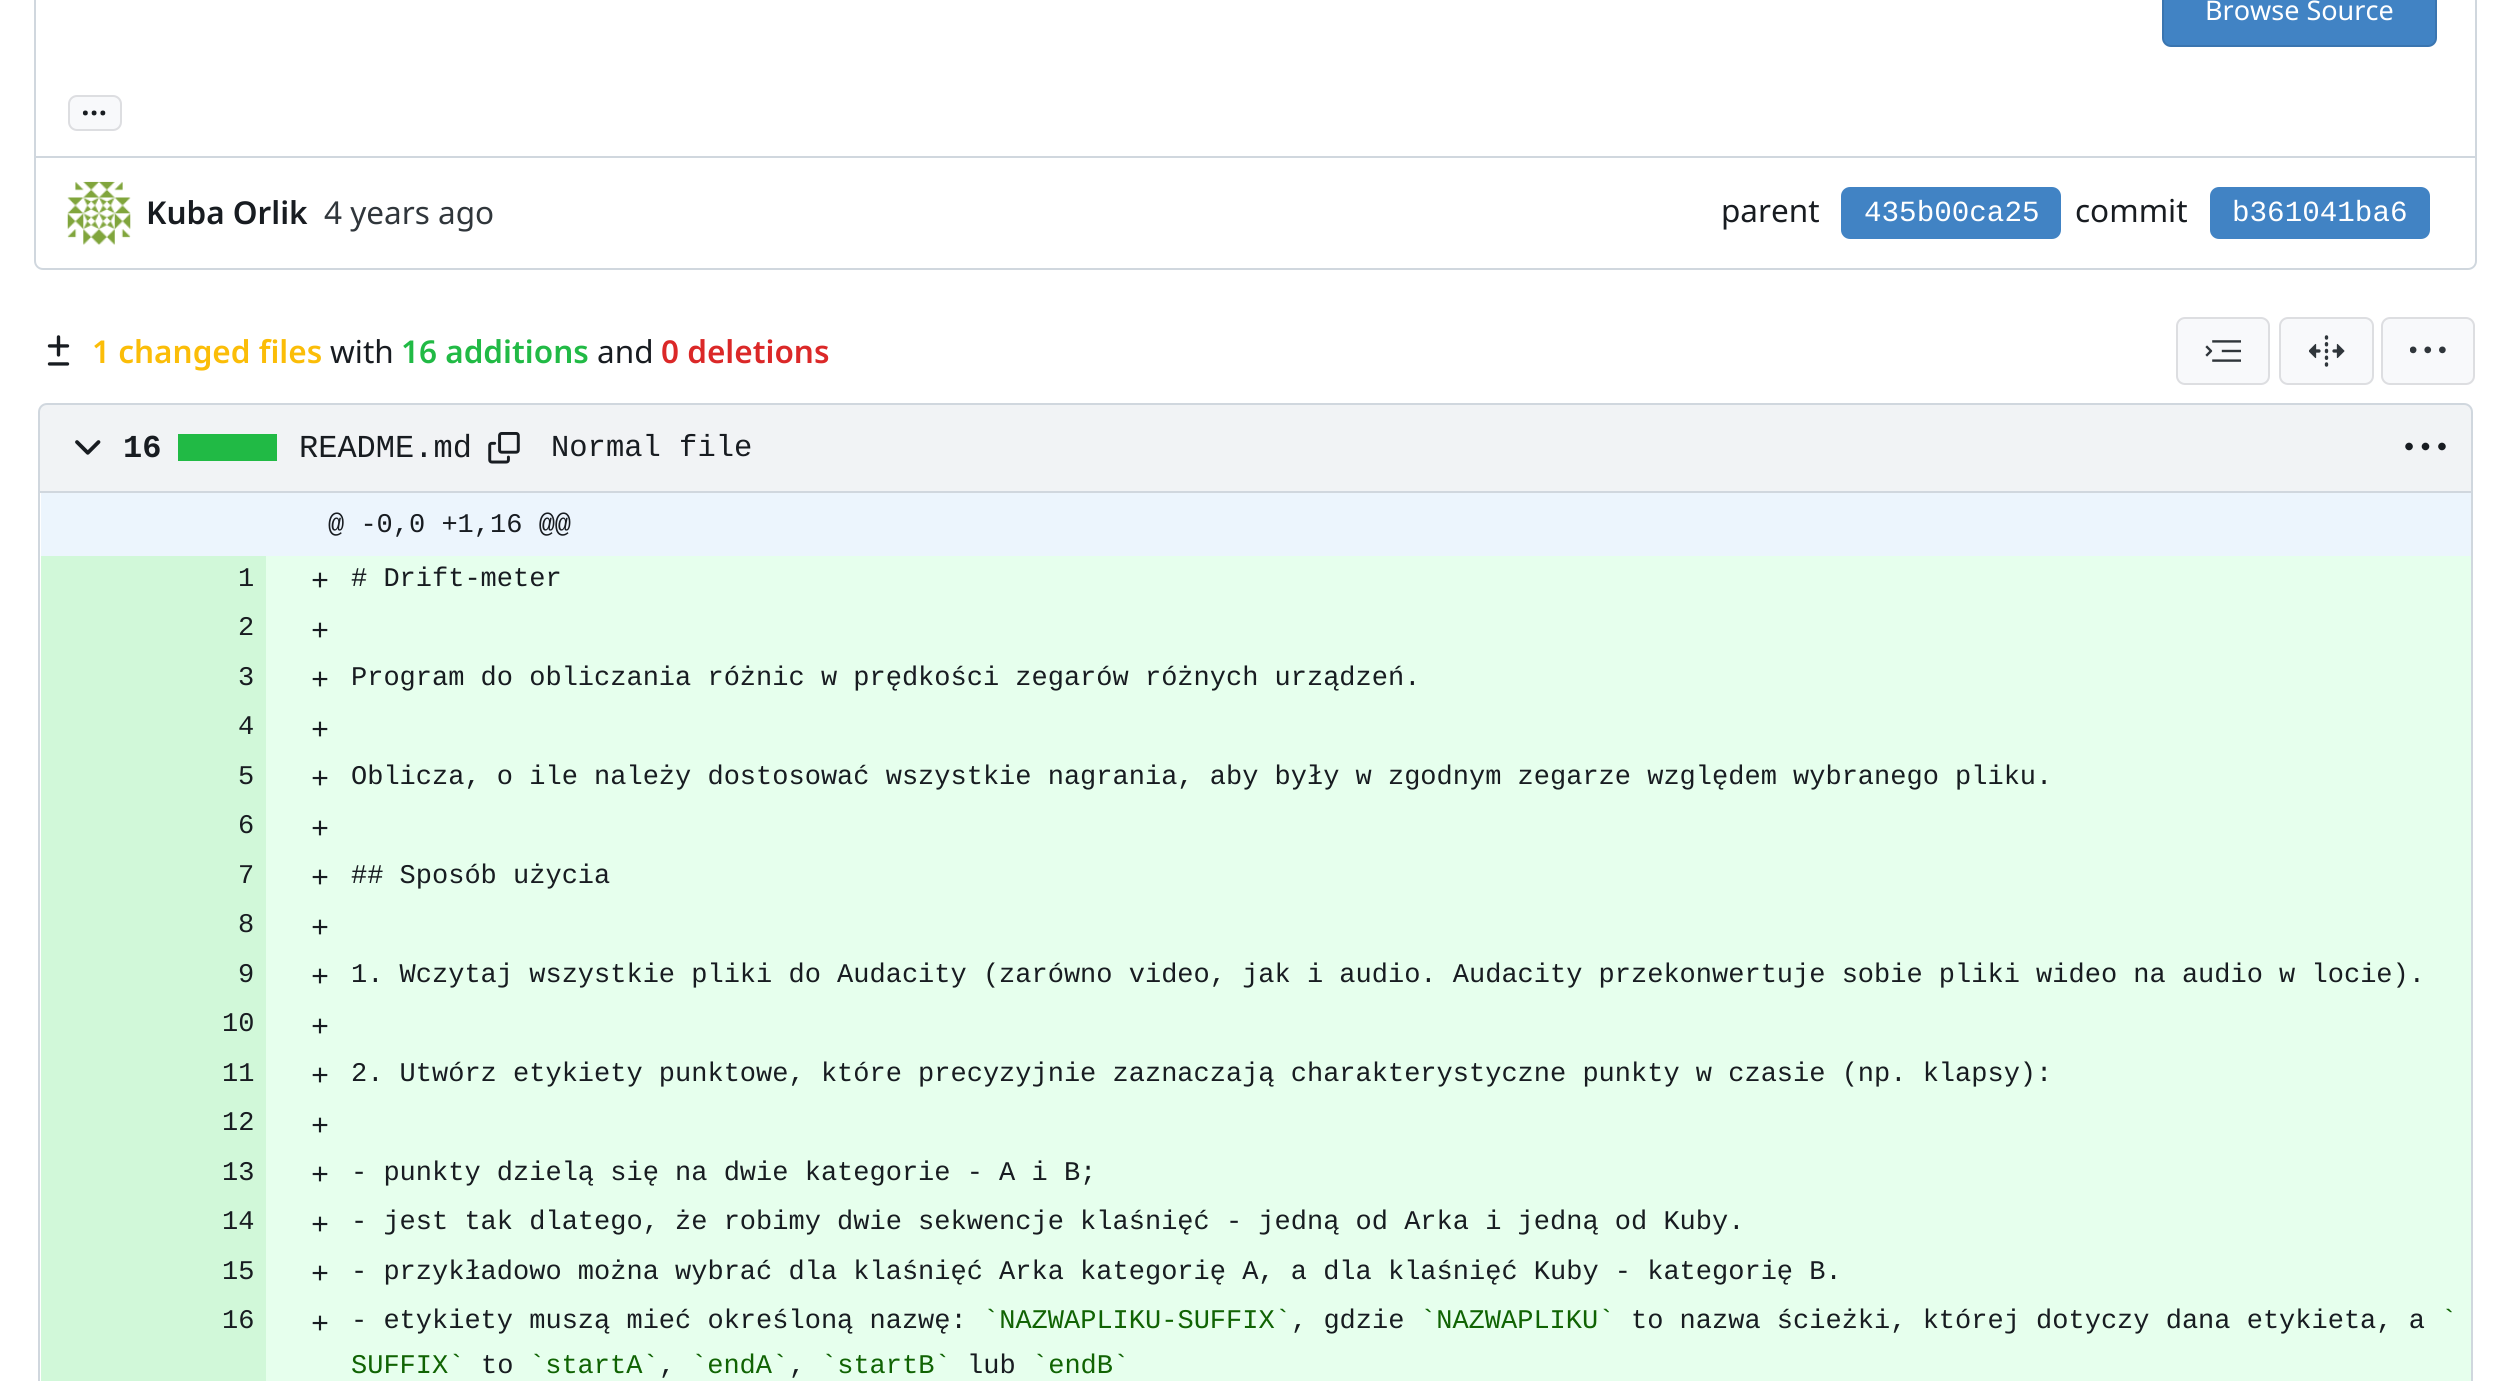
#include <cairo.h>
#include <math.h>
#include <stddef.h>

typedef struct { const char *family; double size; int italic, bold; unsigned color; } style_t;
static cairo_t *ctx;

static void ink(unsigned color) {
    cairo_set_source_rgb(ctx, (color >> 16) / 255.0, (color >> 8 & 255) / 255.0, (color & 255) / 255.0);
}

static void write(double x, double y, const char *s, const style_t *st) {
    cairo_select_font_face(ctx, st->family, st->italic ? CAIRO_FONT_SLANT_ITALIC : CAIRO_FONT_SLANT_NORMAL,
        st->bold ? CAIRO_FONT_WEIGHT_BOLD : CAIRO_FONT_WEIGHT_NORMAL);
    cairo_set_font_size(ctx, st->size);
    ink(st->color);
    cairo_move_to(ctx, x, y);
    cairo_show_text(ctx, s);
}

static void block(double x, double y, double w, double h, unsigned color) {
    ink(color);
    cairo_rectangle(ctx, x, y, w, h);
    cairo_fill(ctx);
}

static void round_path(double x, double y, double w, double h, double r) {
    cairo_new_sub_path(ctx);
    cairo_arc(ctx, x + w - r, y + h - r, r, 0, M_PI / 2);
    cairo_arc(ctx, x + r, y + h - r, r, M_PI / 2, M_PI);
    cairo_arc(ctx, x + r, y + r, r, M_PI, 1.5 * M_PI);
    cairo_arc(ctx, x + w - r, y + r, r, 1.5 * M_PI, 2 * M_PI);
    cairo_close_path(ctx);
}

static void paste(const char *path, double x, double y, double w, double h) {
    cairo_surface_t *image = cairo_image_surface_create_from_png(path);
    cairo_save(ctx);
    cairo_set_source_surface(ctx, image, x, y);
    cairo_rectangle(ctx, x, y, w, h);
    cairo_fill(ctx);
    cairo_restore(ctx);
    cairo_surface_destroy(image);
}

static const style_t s1 = {"Noto Sans", 27, 0, 0, 0xffffff};
static const style_t s2 = {"Noto Sans SemiBold", 31.5, 0, 0, 0x181c21};
static const style_t s3 = {"Noto Sans", 31.5, 0, 0, 0x30363b};
static const style_t s4 = {"Noto Sans", 31.5, 0, 0, 0x181c21};
static const style_t s5 = {"Liberation Mono", 29.25, 0, 0, 0xffffff};
static const style_t s6 = {"Noto Sans SemiBold", 31.5, 0, 0, 0xfbbd08};
static const style_t s7 = {"Noto Sans SemiBold", 31.5, 0, 0, 0x21ba45};
static const style_t s8 = {"Noto Sans SemiBold", 31.5, 0, 0, 0xdb2828};
static const style_t s9 = {"Liberation Mono", 32, 0, 1, 0x181c21};
static const style_t s10 = {"Liberation Mono", 32, 0, 0, 0x181c21};
static const style_t s11 = {"Liberation Mono", 30.5, 0, 0, 0x181c21};
static const style_t s12 = {"Liberation Mono", 27, 0, 0, 0x181c21};
static const style_t s13 = {"Liberation Mono", 30, 0, 0, 0x181c21};
static const style_t s14 = {"Liberation Mono", 27, 0, 0, 0x106303};

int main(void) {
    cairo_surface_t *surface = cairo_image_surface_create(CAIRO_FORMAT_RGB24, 2511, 1381);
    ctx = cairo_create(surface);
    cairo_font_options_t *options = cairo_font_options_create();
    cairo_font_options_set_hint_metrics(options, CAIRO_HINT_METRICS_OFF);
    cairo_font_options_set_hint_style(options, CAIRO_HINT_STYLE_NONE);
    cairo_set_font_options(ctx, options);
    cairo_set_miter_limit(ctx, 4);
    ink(0xffffff);
    cairo_paint(ctx);
    cairo_rectangle(ctx, 35, -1, 2441, 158);
    ink(0xd0d7de);
    cairo_stroke(ctx);
    ink(0x4183c4);
    round_path(2162, -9, 275, 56, 9);
    cairo_fill(ctx);
    round_path(2163, -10, 273, 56, 8);
    cairo_set_source_rgba(ctx, 0, 0, 0.09, 0.11);
    cairo_stroke(ctx);
    write(2205, 20, "Browse Source", &s1);
    ink(0xf8f9fb);
    round_path(68, 95, 54, 36, 9);
    cairo_fill(ctx);
    round_path(69, 96, 52, 34, 8);
    cairo_set_source_rgba(ctx, 0, 0, 0.09, 0.11);
    cairo_stroke(ctx);
    write(81, 115, "...", &s2);
    ink(0xd0d7de);
    cairo_set_fill_rule(ctx, CAIRO_FILL_RULE_EVEN_ODD);
    cairo_new_path(ctx);
    cairo_move_to(ctx, 34, 158);
    cairo_line_to(ctx, 2477, 158);
    cairo_line_to(ctx, 2477, 261);
    cairo_curve_to(ctx, 2477, 266, 2473, 270, 2468, 270);
    cairo_line_to(ctx, 43, 270);
    cairo_curve_to(ctx, 38, 270, 34, 266, 34, 261);
    cairo_close_path(ctx);
    cairo_move_to(ctx, 36, 158);
    cairo_line_to(ctx, 2475, 158);
    cairo_line_to(ctx, 2475, 261);
    cairo_curve_to(ctx, 2475, 265, 2472, 268, 2468, 268);
    cairo_line_to(ctx, 43, 268);
    cairo_curve_to(ctx, 39, 268, 36, 265, 36, 261);
    cairo_close_path(ctx);
    cairo_fill(ctx);
    paste("pic1.png", 67, 181, 64, 64);
    write(146, 224, "Kuba Orlik", &s2);
    write(324, 224, "4 years ago", &s3);
    write(1721, 222, "parent", &s4);
    ink(0x4183c4);
    round_path(1841, 187, 220, 52, 9);
    cairo_fill(ctx);
    write(1864, 221, "435b00ca25", &s5);
    write(2075, 222, "commit", &s4);
    ink(0x4183c4);
    round_path(2210, 187, 220, 52, 9);
    cairo_fill(ctx);
    write(2232, 221, "b361041ba6", &s5);
    paste("pic2.png", 47, 335, 23, 31);
    write(92, 363, "1 changed files", &s6);
    write(330, 363, "with", &s4);
    write(401, 363, "16 additions", &s7);
    write(597, 363, "and", &s4);
    write(661, 363, "0 deletions", &s8);
    ink(0xf8f9fb);
    round_path(2176, 317, 94, 68, 9);
    cairo_fill(ctx);
    round_path(2177, 318, 92, 66, 8);
    cairo_set_source_rgba(ctx, 0, 0, 0.09, 0.11);
    cairo_stroke(ctx);
    paste("pic3.png", 2205, 340, 36, 22);
    ink(0xf8f9fb);
    round_path(2279, 317, 95, 68, 9);
    cairo_fill(ctx);
    round_path(2280, 318, 93, 66, 8);
    cairo_set_source_rgba(ctx, 0, 0, 0.09, 0.11);
    cairo_stroke(ctx);
    paste("pic4.png", 2309, 335, 36, 32);
    ink(0xf8f9fb);
    round_path(2381, 317, 94, 68, 9);
    cairo_fill(ctx);
    round_path(2382, 318, 92, 66, 8);
    cairo_set_source_rgba(ctx, 0, 0, 0.09, 0.11);
    cairo_stroke(ctx);
    paste("pic5.png", 2410, 346, 36, 8);
    ink(0xf1f3f5);
    cairo_new_path(ctx);
    cairo_move_to(ctx, 47, 404);
    cairo_line_to(ctx, 2464, 404);
    cairo_curve_to(ctx, 2468.5, 404, 2472, 407.5, 2472, 412);
    cairo_line_to(ctx, 2472, 492);
    cairo_line_to(ctx, 39, 492);
    cairo_line_to(ctx, 39, 412);
    cairo_curve_to(ctx, 39, 407.5, 42.5, 404, 47, 404);
    cairo_close_path(ctx);
    cairo_fill_preserve(ctx);
    ink(0xd0d7de);
    cairo_stroke(ctx);
    paste("pic6.png", 75, 440, 26, 15);
    write(123, 457, "16", &s9);
    block(178, 434, 99, 27, 0x21ba45);
    write(299, 457, "README.md", &s10);
    paste("pic7.png", 488, 432, 32, 32);
    write(551, 456, "Normal file", &s11);
    paste("pic8.png", 2405, 442, 41, 9);
    ink(0xd0d7de);
    cairo_new_path(ctx);
    cairo_move_to(ctx, 38, 493);
    cairo_line_to(ctx, 2473, 493);
    cairo_line_to(ctx, 2473, 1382);
    cairo_curve_to(ctx, 2473, 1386, 2469, 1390, 2464, 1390);
    cairo_line_to(ctx, 47, 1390);
    cairo_curve_to(ctx, 42, 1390, 38, 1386, 38, 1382);
    cairo_close_path(ctx);
    cairo_move_to(ctx, 40, 493);
    cairo_line_to(ctx, 2470, 493);
    cairo_line_to(ctx, 2470, 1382);
    cairo_curve_to(ctx, 2470, 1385, 2467, 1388, 2464, 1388);
    cairo_line_to(ctx, 47, 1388);
    cairo_curve_to(ctx, 44, 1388, 40, 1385, 40, 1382);
    cairo_close_path(ctx);
    cairo_fill(ctx);
    block(41, 493, 2430, 63, 0xecf5fd);
    write(328, 532, "@ -0,0 +1,16 @@", &s12);
    block(266, 556, 2205, 825, 0xe6ffed);
    block(41, 556, 225, 49, 0xd1f8d9);
    write(351, 586, "# Drift-meter", &s12);
    write(238, 586, "1", &s12);
    write(311, 590, "+", &s13);
    block(41, 605, 225, 50, 0xd1f8d9);
    write(238, 635, "2", &s12);
    write(311, 640, "+", &s13);
    block(41, 655, 225, 49, 0xd1f8d9);
    write(351, 685, "Program do obliczania różnic w prędkości zegarów różnych urządzeń.", &s12);
    write(238, 685, "3", &s12);
    write(311, 689, "+", &s13);
    block(41, 704, 225, 50, 0xd1f8d9);
    write(238, 734, "4", &s12);
    write(311, 739, "+", &s13);
    block(41, 754, 225, 49, 0xd1f8d9);
    write(351, 784, "Oblicza, o ile należy dostosować wszystkie nagrania, aby były w zgodnym zegarze względem wybranego pliku.", &s12);
    write(238, 784, "5", &s12);
    write(311, 788, "+", &s13);
    block(41, 803, 225, 50, 0xd1f8d9);
    write(238, 833, "6", &s12);
    write(311, 838, "+", &s13);
    block(41, 853, 225, 49, 0xd1f8d9);
    write(351, 883, "## Sposób użycia", &s12);
    write(238, 883, "7", &s12);
    write(311, 887, "+", &s13);
    block(41, 902, 225, 50, 0xd1f8d9);
    write(238, 932, "8", &s12);
    write(311, 937, "+", &s13);
    block(41, 952, 225, 49, 0xd1f8d9);
    write(351, 982, "1. Wczytaj wszystkie pliki do Audacity (zarówno video, jak i audio. Audacity przekonwertuje sobie pliki wideo na audio w locie).", &s12);
    write(238, 982, "9", &s12);
    write(311, 986, "+", &s13);
    block(41, 1001, 225, 50, 0xd1f8d9);
    write(222, 1031, "10", &s12);
    write(311, 1036, "+", &s13);
    block(41, 1051, 225, 49, 0xd1f8d9);
    write(351, 1081, "2. Utwórz etykiety punktowe, które precyzyjnie zaznaczają charakterystyczne punkty w czasie (np. klapsy):", &s12);
    write(222, 1081, "11", &s12);
    write(311, 1085, "+", &s13);
    block(41, 1100, 225, 50, 0xd1f8d9);
    write(222, 1130, "12", &s12);
    write(311, 1135, "+", &s13);
    block(41, 1150, 225, 49, 0xd1f8d9);
    write(351, 1180, "- punkty dzielą się na dwie kategorie - A i B;", &s12);
    write(222, 1180, "13", &s12);
    write(311, 1184, "+", &s13);
    block(41, 1199, 225, 50, 0xd1f8d9);
    write(351, 1229, "- jest tak dlatego, że robimy dwie sekwencje klaśnięć - jedną od Arka i jedną od Kuby.", &s12);
    write(222, 1229, "14", &s12);
    write(311, 1234, "+", &s13);
    block(41, 1249, 225, 49, 0xd1f8d9);
    write(351, 1279, "- przykładowo można wybrać dla klaśnięć Arka kategorię A, a dla klaśnięć Kuby - kategorię B.", &s12);
    write(222, 1279, "15", &s12);
    write(311, 1283, "+", &s13);
    block(41, 1298, 225, 83, 0xd1f8d9);
    write(351, 1328, "- etykiety muszą mieć określoną nazwę:", &s12);
    write(983, 1328, "`NAZWAPLIKU-SUFFIX`", &s14);
    write(1291, 1328, ", gdzie", &s12);
    write(1420, 1328, "`NAZWAPLIKU`", &s14);
    write(1631, 1328, "to nazwa ścieżki, której dotyczy dana etykieta, a", &s12);
    write(2441, 1328, "`", &s14);
    write(351, 1373, "SUFFIX`", &s14);
    write(481, 1373, "to", &s12);
    write(529, 1373, "`startA`", &s14);
    write(659, 1373, ",", &s12);
    write(691, 1373, "`endA`", &s14);
    write(789, 1373, ",", &s12);
    write(821, 1373, "`startB`", &s14);
    write(967, 1373, "lub", &s12);
    write(1032, 1373, "`endB`", &s14);
    write(222, 1328, "16", &s12);
    write(311, 1333, "+", &s13);
    cairo_surface_write_to_png(surface, "screenshot.png");
    cairo_font_options_destroy(options);
    cairo_destroy(ctx);
    cairo_surface_destroy(surface);
    return 0;
}
